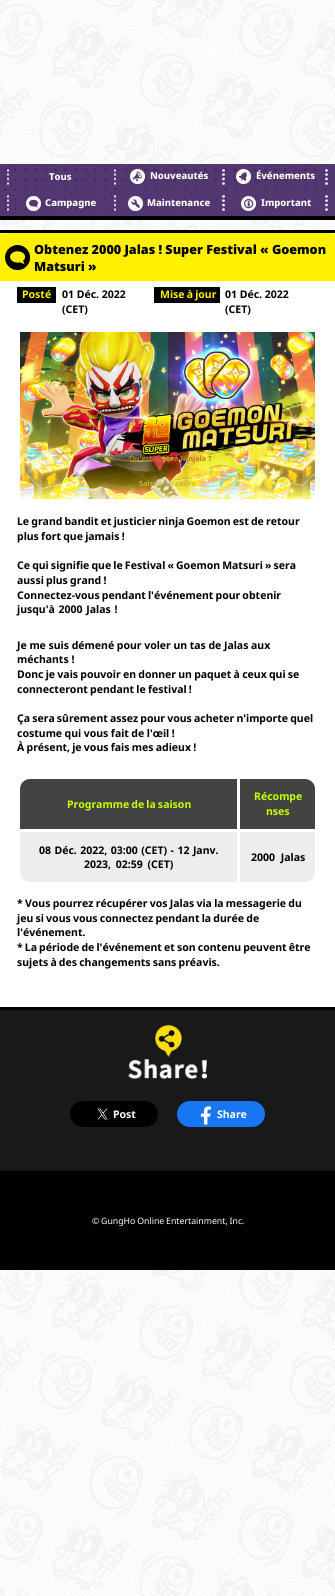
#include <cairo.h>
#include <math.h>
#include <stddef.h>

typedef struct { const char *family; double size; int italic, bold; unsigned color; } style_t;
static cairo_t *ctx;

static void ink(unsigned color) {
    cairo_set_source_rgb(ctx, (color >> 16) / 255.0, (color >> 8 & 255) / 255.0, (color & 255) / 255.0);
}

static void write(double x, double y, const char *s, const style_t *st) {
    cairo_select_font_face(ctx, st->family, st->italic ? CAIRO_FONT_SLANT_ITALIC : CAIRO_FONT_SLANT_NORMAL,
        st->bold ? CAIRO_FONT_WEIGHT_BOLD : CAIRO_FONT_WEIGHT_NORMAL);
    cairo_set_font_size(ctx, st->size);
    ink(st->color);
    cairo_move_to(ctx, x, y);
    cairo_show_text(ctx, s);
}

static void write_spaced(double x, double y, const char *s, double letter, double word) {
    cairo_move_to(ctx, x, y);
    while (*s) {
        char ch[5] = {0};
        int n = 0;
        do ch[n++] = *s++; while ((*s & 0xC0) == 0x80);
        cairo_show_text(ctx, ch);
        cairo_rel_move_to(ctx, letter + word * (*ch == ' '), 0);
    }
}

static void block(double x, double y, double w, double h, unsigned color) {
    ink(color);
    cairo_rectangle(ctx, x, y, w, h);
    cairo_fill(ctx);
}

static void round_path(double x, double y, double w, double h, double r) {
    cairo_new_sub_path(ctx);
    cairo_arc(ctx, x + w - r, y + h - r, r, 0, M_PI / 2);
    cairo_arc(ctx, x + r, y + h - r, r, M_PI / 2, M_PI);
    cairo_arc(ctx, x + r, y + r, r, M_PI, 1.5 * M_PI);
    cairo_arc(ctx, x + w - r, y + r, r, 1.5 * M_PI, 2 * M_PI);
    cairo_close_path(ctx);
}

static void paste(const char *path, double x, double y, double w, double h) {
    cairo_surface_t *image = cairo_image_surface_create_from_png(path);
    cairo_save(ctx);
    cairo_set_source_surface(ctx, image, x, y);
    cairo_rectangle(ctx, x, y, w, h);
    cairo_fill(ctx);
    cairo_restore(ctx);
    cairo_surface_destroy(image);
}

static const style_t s1 = {"Noto Sans ExtraBold", 9.5, 0, 0, 0xffffff};
static const style_t s2 = {"Noto Sans Black", 12.6, 0, 0, 0x000000};
static const style_t s3 = {"Noto Sans", 10.5, 0, 1, 0xfff000};
static const style_t s4 = {"Noto Sans", 10.5, 0, 1, 0x000000};
static const style_t s5 = {"Noto Sans", 10.5, 0, 1, 0xc6ff00};
static const style_t s6 = {"Noto Sans", 7.25, 0, 1, 0xaf7c2e};
static const style_t s7 = {"Noto Sans", 7.25, 0, 1, 0xc5b447};
static const style_t s8 = {"Noto Sans", 10.5, 0, 1, 0xffffff};

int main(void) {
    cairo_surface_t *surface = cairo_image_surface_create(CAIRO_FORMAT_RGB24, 335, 1596);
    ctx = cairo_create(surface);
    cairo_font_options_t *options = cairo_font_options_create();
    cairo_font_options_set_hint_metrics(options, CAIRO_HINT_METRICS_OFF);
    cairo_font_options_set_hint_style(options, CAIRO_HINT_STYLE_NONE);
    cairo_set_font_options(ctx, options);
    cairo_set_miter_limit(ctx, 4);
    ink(0xffffff);
    cairo_paint(ctx);
    paste("pic1.png", 0, 0, 335, 1596);
    block(0, 164, 335, 52, 0x533771);
    paste("pic2.png", 4, 168, 331, 42);
    block(0, 216, 335, 4, 0x000000);
    paste("pic3.png", 7, 169, 2, 16);
    write(49, 180, "Tous", &s1);
    paste("pic4.png", 114, 169, 2, 16);
    paste("pic5.png", 130, 169, 15, 15);
    write(150, 179, "Nouveautés", &s1);
    paste("pic6.png", 222, 169, 106, 16);
    paste("pic7.png", 236, 169, 15, 15);
    write(256, 179, "Événements", &s1);
    paste("pic3.png", 7, 195, 2, 16);
    paste("pic8.png", 26, 196, 15, 15);
    write(45, 206, "Campagne", &s1);
    paste("pic9.png", 114, 195, 2, 16);
    paste("pic10.png", 128, 196, 15, 15);
    write(147, 206, "Maintenance", &s1);
    paste("pic11.png", 222, 195, 106, 16);
    paste("pic12.png", 241, 196, 15, 15);
    write(261, 206, "Important", &s1);
    block(0, 233, 335, 774, 0xffffff);
    block(0, 230, 335, 3, 0x000000);
    block(0, 1007, 335, 3, 0x000000);
    ink(0xfff000);
    cairo_new_path(ctx);
    cairo_move_to(ctx, 2.5, 233);
    cairo_line_to(ctx, 332.5, 233);
    cairo_curve_to(ctx, 334, 233, 335, 234, 335, 235.5);
    cairo_line_to(ctx, 335, 281);
    cairo_line_to(ctx, 0, 281);
    cairo_line_to(ctx, 0, 235.5);
    cairo_curve_to(ctx, 0, 234, 1, 233, 2.5, 233);
    cairo_close_path(ctx);
    cairo_fill(ctx);
    paste("pic13.png", 5, 245, 25, 25);
    write(34, 254, "Obtenez 2000 Jalas ! Super Festival « Goemon", &s2);
    write(34, 271, "Matsuri »", &s2);
    block(17, 287, 39, 16, 0x000000);
    write(22, 298, "Posté", &s3);
    write(62, 298, "01 Déc. 2022", &s4);
    write(62, 313, "(CET)", &s4);
    block(154, 287, 66, 16, 0x000000);
    ink(0xfff000);
    write_spaced(160, 298, "Mise à jour", 0, -0.6);
    write(225, 298, "01 Déc. 2022", &s4);
    write(225, 313, "(CET)", &s4);
    paste("pic14.png", 20, 332, 295, 167);
    write_spaced(17, 525, "Le grand bandit et justicier ninja Goemon est de retour", 0, -0.6);
    write_spaced(17, 540, "plus fort que jamais !", 0, -0.5);
    write_spaced(17, 569, "Ce qui signifie que le Festival « Goemon Matsuri » sera", 0, -0.6);
    write_spaced(17, 584, "aussi plus grand !", 0, -0.5);
    write_spaced(17, 599, "Connectez-vous pendant l'événement pour obtenir", 0, -0.6);
    write_spaced(17, 613, "jusqu'à 2000 Jalas !", 0, 1);
    write_spaced(17, 649, "Je me suis démené pour voler un tas de Jalas aux", 0, -0.1);
    write(17, 663, "méchants !", &s4);
    write_spaced(17, 678, "Donc je vais pouvoir en donner un paquet à ceux qui se", 0, -0.5);
    write_spaced(17, 693, "connecteront pendant le festival !", 0, -0.5);
    write_spaced(17, 722, "Ça sera sûrement assez pour vous acheter n'importe quel", 0, -0.6);
    write_spaced(17, 737, "costume qui vous fait de l'œil !", 0, -0.25);
    write_spaced(17, 751, "À présent, je vous fais mes adieux !", 0, -0.5);
    ink(0x434343);
    cairo_new_path(ctx);
    cairo_move_to(ctx, 30, 779);
    cairo_line_to(ctx, 237, 779);
    cairo_line_to(ctx, 237, 829);
    cairo_line_to(ctx, 20, 829);
    cairo_line_to(ctx, 20, 789);
    cairo_curve_to(ctx, 20, 783.5, 24.5, 779, 30, 779);
    cairo_close_path(ctx);
    cairo_fill(ctx);
    ink(0xc6ff00);
    write_spaced(67, 808, "Programme de la saison", 0, -0.6);
    ink(0x434343);
    cairo_new_path(ctx);
    cairo_move_to(ctx, 240, 779);
    cairo_line_to(ctx, 305, 779);
    cairo_curve_to(ctx, 310.5, 779, 315, 783.5, 315, 789);
    cairo_line_to(ctx, 315, 829);
    cairo_line_to(ctx, 240, 829);
    cairo_close_path(ctx);
    cairo_fill(ctx);
    write(254, 800, "Récompe", &s5);
    write(266, 815, "nses", &s5);
    ink(0xededed);
    cairo_new_path(ctx);
    cairo_move_to(ctx, 20, 832);
    cairo_line_to(ctx, 237, 832);
    cairo_line_to(ctx, 237, 882);
    cairo_line_to(ctx, 30, 882);
    cairo_curve_to(ctx, 24.5, 882, 20, 877.5, 20, 872);
    cairo_close_path(ctx);
    cairo_fill(ctx);
    ink(0x000000);
    write_spaced(39, 854, "08 Déc. 2022, 03:00 (CET) - 12 Janv.", 0, 0.75);
    write_spaced(84, 868, "2023, 02:59 (CET)", 0, 2);
    ink(0xededed);
    cairo_new_path(ctx);
    cairo_move_to(ctx, 240, 832);
    cairo_line_to(ctx, 315, 832);
    cairo_line_to(ctx, 315, 872);
    cairo_curve_to(ctx, 315, 877.5, 310.5, 882, 305, 882);
    cairo_line_to(ctx, 240, 882);
    cairo_close_path(ctx);
    cairo_fill(ctx);
    ink(0x000000);
    write_spaced(251, 861, "2000 Jalas", 0, 3);
    write_spaced(17, 907, "* Vous pourrez récupérer vos Jalas via la messagerie du", 0, -0.5);
    write_spaced(17, 922, "jeu si vous vous connectez pendant la durée de", 0, -0.5);
    write(17, 936, "l'événement.", &s4);
    write_spaced(17, 951, "* La période de l'événement et son contenu peuvent être", 0, -0.6);
    write_spaced(17, 966, "sujets à des changements sans préavis.", 0, -0.6);
    write(129, 461, "Qu'est-ce que Ninjala ?", &s6);
    write(139, 486, "Saison en cours", &s7);
    block(0, 1171, 335, 99, 0x000000);
    block(0, 1010, 335, 161, 0x191919);
    paste("pic15.png", 128, 1025, 79, 54);
    ink(0x000000);
    round_path(70, 1101, 88, 26, 13);
    cairo_fill(ctx);
    paste("pic16.png", 97, 1108, 11, 12);
    write(113, 1118, "Post", &s8);
    ink(0x1876f2);
    round_path(177, 1101, 88, 26, 13);
    cairo_fill(ctx);
    paste("pic17.png", 200, 1106, 11, 19);
    write(217, 1118, "Share", &s8);
    cairo_select_font_face(ctx, "Noto Sans", CAIRO_FONT_SLANT_NORMAL, CAIRO_FONT_WEIGHT_NORMAL);
    cairo_set_font_size(ctx, 8.75);
    write_spaced(92, 1224, "© GungHo Online Entertainment, Inc.", 0, -0.5);
    cairo_surface_write_to_png(surface, "screenshot.png");
    cairo_font_options_destroy(options);
    cairo_destroy(ctx);
    cairo_surface_destroy(surface);
    return 0;
}
